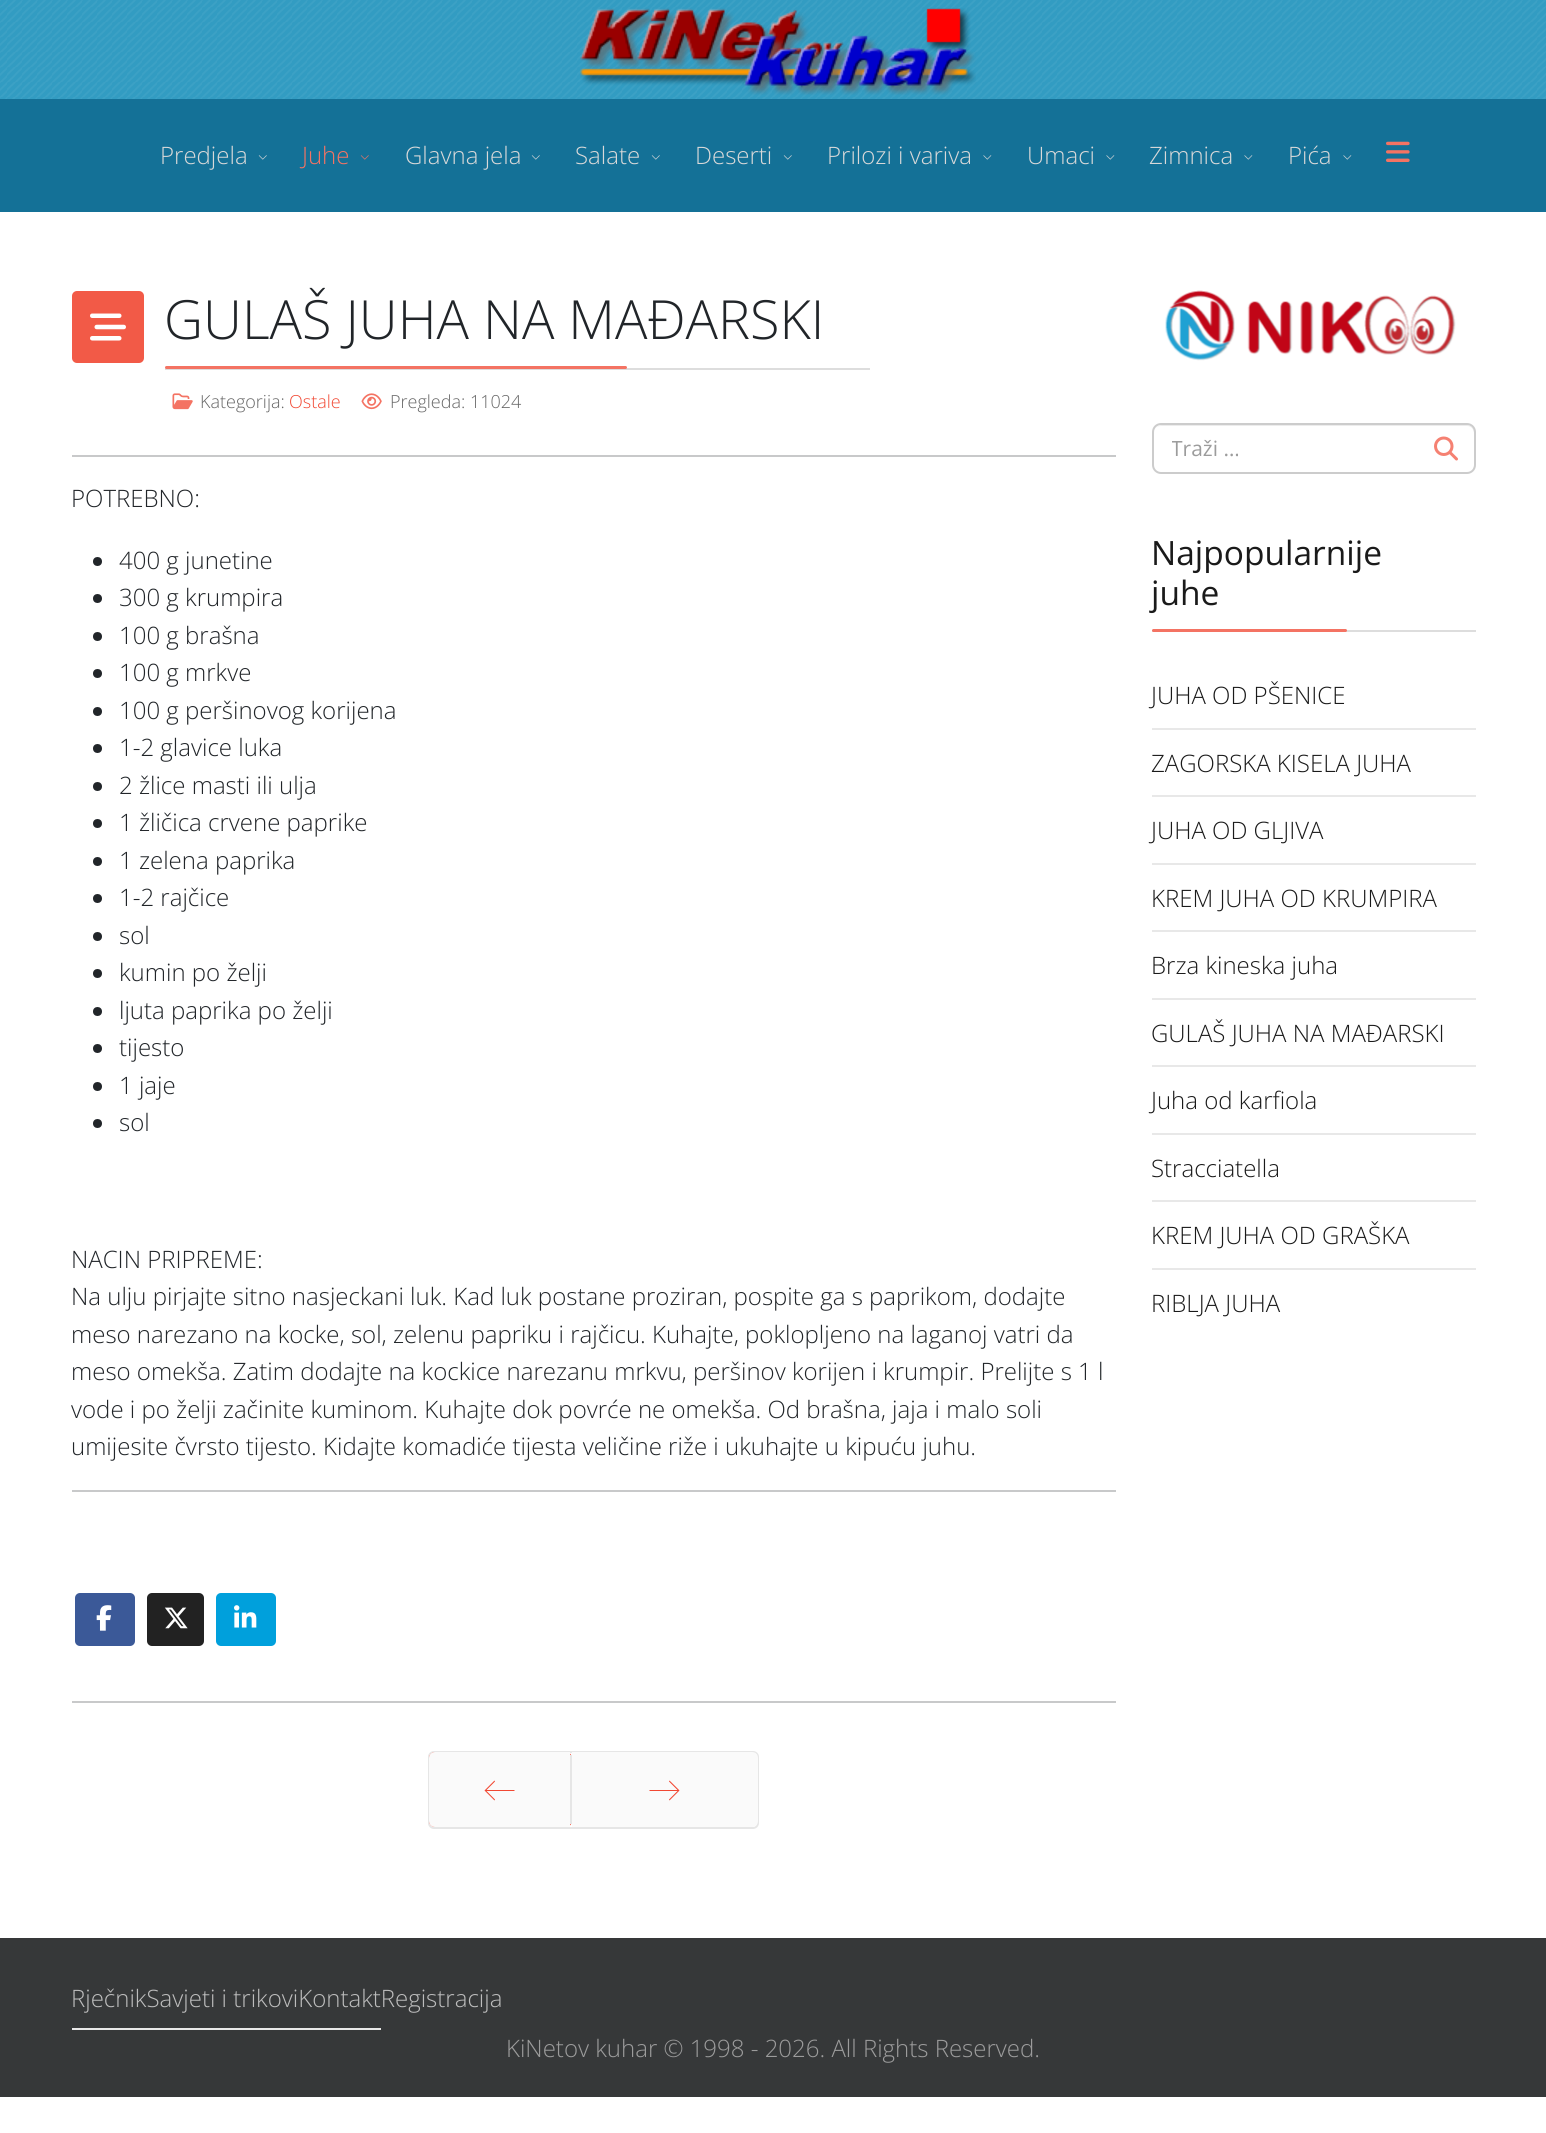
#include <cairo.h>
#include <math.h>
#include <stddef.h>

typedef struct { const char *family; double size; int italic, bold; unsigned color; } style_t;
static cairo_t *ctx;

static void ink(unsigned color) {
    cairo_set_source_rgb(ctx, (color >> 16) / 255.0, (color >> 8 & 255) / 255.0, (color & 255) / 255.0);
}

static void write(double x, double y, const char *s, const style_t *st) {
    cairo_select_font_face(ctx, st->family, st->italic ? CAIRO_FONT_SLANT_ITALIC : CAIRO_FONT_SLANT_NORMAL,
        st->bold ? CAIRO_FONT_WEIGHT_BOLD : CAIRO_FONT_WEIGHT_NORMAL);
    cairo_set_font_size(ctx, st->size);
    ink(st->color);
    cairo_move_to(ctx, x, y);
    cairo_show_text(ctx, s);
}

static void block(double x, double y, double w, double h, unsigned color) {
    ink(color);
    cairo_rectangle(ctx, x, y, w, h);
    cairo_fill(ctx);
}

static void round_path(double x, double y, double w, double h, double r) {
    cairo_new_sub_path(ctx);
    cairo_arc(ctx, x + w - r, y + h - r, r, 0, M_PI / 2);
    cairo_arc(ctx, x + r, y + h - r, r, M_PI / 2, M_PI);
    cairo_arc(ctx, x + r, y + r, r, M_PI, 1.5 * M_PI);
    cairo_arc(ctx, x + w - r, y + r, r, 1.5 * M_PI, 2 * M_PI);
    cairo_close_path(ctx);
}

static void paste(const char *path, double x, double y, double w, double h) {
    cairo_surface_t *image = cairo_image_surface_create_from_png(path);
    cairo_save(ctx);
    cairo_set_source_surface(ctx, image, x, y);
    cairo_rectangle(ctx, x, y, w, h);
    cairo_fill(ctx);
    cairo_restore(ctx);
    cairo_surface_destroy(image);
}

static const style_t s1 = {"Open Sans Light", 24, 0, 0, 0xd9d9d9};
static const style_t s2 = {"Open Sans Light", 24, 0, 0, 0xf47363};
static const style_t s3 = {"Open Sans Light", 54, 0, 0, 0x212529};
static const style_t s4 = {"Open Sans Light", 18, 0, 0, 0x666666};
static const style_t s5 = {"Open Sans Light", 18, 0, 0, 0xf14833};
static const style_t s6 = {"Open Sans Light", 24, 0, 0, 0x212529};
static const style_t s7 = {"Open Sans", 21, 0, 0, 0x9c9c9c};
static const style_t s8 = {"Open Sans", 33.5, 0, 0, 0x1a1a1a};
static const style_t s9 = {"Open Sans Light", 24, 0, 0, 0x1a1a1a};
static const style_t s10 = {"Open Sans Light", 24, 0, 0, 0xbdbdbd};
static const style_t s11 = {"Open Sans Light", 24, 0, 0, 0x9c9c9c};

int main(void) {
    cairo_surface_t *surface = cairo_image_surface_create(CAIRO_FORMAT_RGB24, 1546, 2133);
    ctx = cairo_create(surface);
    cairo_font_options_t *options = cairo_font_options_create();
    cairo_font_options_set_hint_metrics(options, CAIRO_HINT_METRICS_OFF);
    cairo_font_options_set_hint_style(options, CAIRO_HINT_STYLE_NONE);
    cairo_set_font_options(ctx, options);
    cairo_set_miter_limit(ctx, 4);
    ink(0xffffff);
    cairo_paint(ctx);
    block(0, 0, 1546, 99, 0x329cc2);
    paste("pic1.png", 0, 0, 1546, 99);
    paste("pic2.png", 580, 8, 396, 87);
    block(0, 99, 1546, 113, 0x147197);
    write(160, 164, "Predjela", &s1);
    paste("pic3.png", 258, 155, 9, 5);
    write(302, 164, "Juhe", &s2);
    paste("pic4.png", 360, 155, 9, 5);
    write(405, 164, "Glavna jela", &s1);
    paste("pic3.png", 531, 155, 9, 5);
    write(575, 164, "Salate", &s1);
    paste("pic3.png", 651, 155, 9, 5);
    write(695, 164, "Deserti", &s1);
    paste("pic3.png", 783, 155, 9, 5);
    write(827, 164, "Prilozi i variva", &s1);
    paste("pic5.png", 983, 155, 9, 5);
    write(1027, 164, "Umaci", &s1);
    paste("pic5.png", 1106, 155, 9, 5);
    write(1149, 164, "Zimnica", &s1);
    paste("pic5.png", 1244, 155, 9, 5);
    write(1288, 164, "Pića", &s1);
    paste("pic5.png", 1343, 155, 9, 5);
    paste("pic6.png", 1386, 141, 24, 21);
    ink(0xf25a47);
    round_path(72, 291, 72, 72, 5);
    cairo_fill(ctx);
    paste("pic7.png", 90, 313, 36, 28);
    block(165, 368, 705, 2, 0xdddddd);
    write(164, 339, "GULAŠ JUHA NA MAĐARSKI", &s3);
    ink(0xf47363);
    round_path(165, 366, 462, 3, 1.5);
    cairo_fill(ctx);
    paste("pic8.png", 172, 393, 21, 17);
    write(200, 408, "Kategorija:", &s4);
    write(289, 408, "Ostale", &s5);
    paste("pic9.png", 361, 393, 21, 17);
    write(390, 408, "Pregleda: 11024", &s4);
    block(72, 455, 1044, 2, 0xc8c9ca);
    write(71, 507, "POTREBNO:", &s6);
    cairo_new_path(ctx);
    cairo_arc(ctx, 97.5, 561.5, 4.5, 0, 2 * M_PI);
    cairo_fill(ctx);
    write(119, 569, "400 g junetine", &s6);
    cairo_new_path(ctx);
    cairo_arc(ctx, 97.5, 598.5, 4.5, 0, 2 * M_PI);
    cairo_fill(ctx);
    write(119, 606, "300 g krumpira", &s6);
    cairo_new_path(ctx);
    cairo_arc(ctx, 97.5, 636.5, 4.5, 0, 2 * M_PI);
    cairo_fill(ctx);
    write(119, 644, "100 g brašna", &s6);
    cairo_new_path(ctx);
    cairo_arc(ctx, 97.5, 673.5, 4.5, 0, 2 * M_PI);
    cairo_fill(ctx);
    write(119, 681, "100 g mrkve", &s6);
    cairo_new_path(ctx);
    cairo_arc(ctx, 97.5, 711.5, 4.5, 0, 2 * M_PI);
    cairo_fill(ctx);
    write(119, 719, "100 g peršinovog korijena", &s6);
    cairo_new_path(ctx);
    cairo_arc(ctx, 97.5, 748.5, 4.5, 0, 2 * M_PI);
    cairo_fill(ctx);
    write(119, 756, "1-2 glavice luka", &s6);
    cairo_new_path(ctx);
    cairo_arc(ctx, 97.5, 786.5, 4.5, 0, 2 * M_PI);
    cairo_fill(ctx);
    write(119, 794, "2 žlice masti ili ulja", &s6);
    cairo_new_path(ctx);
    cairo_arc(ctx, 97.5, 823.5, 4.5, 0, 2 * M_PI);
    cairo_fill(ctx);
    write(119, 831, "1 žličica crvene paprike", &s6);
    cairo_new_path(ctx);
    cairo_arc(ctx, 97.5, 861.5, 4.5, 0, 2 * M_PI);
    cairo_fill(ctx);
    write(119, 869, "1 zelena paprika", &s6);
    cairo_new_path(ctx);
    cairo_arc(ctx, 97.5, 898.5, 4.5, 0, 2 * M_PI);
    cairo_fill(ctx);
    write(119, 906, "1-2 rajčice", &s6);
    cairo_new_path(ctx);
    cairo_arc(ctx, 97.5, 936.5, 4.5, 0, 2 * M_PI);
    cairo_fill(ctx);
    write(119, 944, "sol", &s6);
    cairo_new_path(ctx);
    cairo_arc(ctx, 97.5, 973.5, 4.5, 0, 2 * M_PI);
    cairo_fill(ctx);
    write(119, 981, "kumin po želji", &s6);
    cairo_new_path(ctx);
    cairo_arc(ctx, 97.5, 1011.5, 4.5, 0, 2 * M_PI);
    cairo_fill(ctx);
    write(119, 1019, "ljuta paprika po želji", &s6);
    cairo_new_path(ctx);
    cairo_arc(ctx, 97.5, 1048.5, 4.5, 0, 2 * M_PI);
    cairo_fill(ctx);
    write(119, 1056, "tijesto", &s6);
    cairo_new_path(ctx);
    cairo_arc(ctx, 97.5, 1086.5, 4.5, 0, 2 * M_PI);
    cairo_fill(ctx);
    write(119, 1094, "1 jaje", &s6);
    cairo_new_path(ctx);
    cairo_arc(ctx, 97.5, 1123.5, 4.5, 0, 2 * M_PI);
    cairo_fill(ctx);
    write(119, 1131, "sol", &s6);
    write(71, 1268, "NACIN PRIPREME:", &s6);
    write(71, 1305, "Na ulju pirjajte sitno nasjeckani luk. Kad luk postane proziran, pospite ga s paprikom, dodajte", &s6);
    write(71, 1343, "meso narezano na kocke, sol, zelenu papriku i rajčicu. Kuhajte, poklopljeno na laganoj vatri da", &s6);
    write(71, 1380, "meso omekša. Zatim dodajte na kockice narezanu mrkvu, peršinov korijen i krumpir. Prelijte s 1 l", &s6);
    write(71, 1418, "vode i po želji začinite kuminom. Kuhajte dok povrće ne omekša. Od brašna, jaja i malo soli", &s6);
    write(71, 1455, "umijesite čvrsto tijesto. Kidajte komadiće tijesta veličine riže i ukuhajte u kipuću juhu.", &s6);
    block(72, 1490, 1044, 2, 0xc8c9ca);
    ink(0x3b5998);
    round_path(75, 1593, 60, 53, 5);
    cairo_fill(ctx);
    paste("pic10.png", 96, 1605, 16, 26);
    ink(0x222222);
    round_path(147, 1593, 57, 53, 5);
    cairo_fill(ctx);
    paste("pic11.png", 164, 1607, 24, 22);
    ink(0x00a0dc);
    round_path(216, 1593, 60, 53, 5);
    cairo_fill(ctx);
    paste("pic12.png", 234, 1605, 23, 23);
    block(72, 1701, 1044, 2, 0xc8c9ca);
    round_path(429, 1752, 329, 76, 5);
    ink(0xe6e6e6);
    cairo_stroke(ctx);
    cairo_set_source_rgba(ctx, 0.945, 0.282, 0.2, 0.9);
    round_path(429, 1752, 143, 75, 6);
    cairo_fill(ctx);
    block(570, 1755, 2, 69, 0xe6e6e6);
    ink(0xfafafa);
    cairo_new_path(ctx);
    cairo_move_to(ctx, 435, 1752);
    cairo_line_to(ctx, 570, 1752);
    cairo_line_to(ctx, 570, 1827);
    cairo_line_to(ctx, 435, 1827);
    cairo_curve_to(ctx, 431.5, 1827, 429, 1824.5, 429, 1821);
    cairo_line_to(ctx, 429, 1758);
    cairo_curve_to(ctx, 429, 1754.5, 431.5, 1752, 435, 1752);
    cairo_close_path(ctx);
    cairo_fill(ctx);
    ink(0xf14833);
    cairo_new_path(ctx);
    cairo_move_to(ctx, 514.5, 1790);
    cairo_line_to(ctx, 486.5, 1790);
    cairo_line_to(ctx, 495, 1781.5);
    cairo_line_to(ctx, 494.5, 1780.5);
    cairo_line_to(ctx, 484.5, 1790.5);
    cairo_line_to(ctx, 494.5, 1800.5);
    cairo_line_to(ctx, 495, 1799.5);
    cairo_line_to(ctx, 486.5, 1791);
    cairo_line_to(ctx, 514.5, 1791);
    cairo_close_path(ctx);
    cairo_fill(ctx);
    ink(0xfafafa);
    cairo_new_path(ctx);
    cairo_move_to(ctx, 572, 1752);
    cairo_line_to(ctx, 752, 1752);
    cairo_curve_to(ctx, 755.5, 1752, 758, 1754.5, 758, 1758);
    cairo_line_to(ctx, 758, 1821);
    cairo_curve_to(ctx, 758, 1824.5, 755.5, 1827, 752, 1827);
    cairo_line_to(ctx, 572, 1827);
    cairo_close_path(ctx);
    cairo_fill(ctx);
    ink(0xf14833);
    cairo_new_path(ctx);
    cairo_move_to(ctx, 669.5, 1780.5);
    cairo_line_to(ctx, 669, 1781.5);
    cairo_line_to(ctx, 677.5, 1790);
    cairo_line_to(ctx, 649.5, 1790);
    cairo_line_to(ctx, 649.5, 1791);
    cairo_line_to(ctx, 677.5, 1791);
    cairo_line_to(ctx, 669, 1799.5);
    cairo_line_to(ctx, 669.5, 1800.5);
    cairo_line_to(ctx, 679.5, 1790.5);
    cairo_close_path(ctx);
    cairo_fill(ctx);
    paste("pic13.png", 1165, 290, 291, 71);
    ink(0xececec);
    cairo_new_path(ctx);
    cairo_move_to(ctx, 1161, 426);
    cairo_line_to(ctx, 1467, 426);
    cairo_curve_to(ctx, 1471, 426, 1474, 429, 1474, 434);
    cairo_line_to(ctx, 1474, 466);
    cairo_line_to(ctx, 1473, 470);
    cairo_curve_to(ctx, 1474, 469, 1475, 467, 1475, 465);
    cairo_line_to(ctx, 1475, 433);
    cairo_curve_to(ctx, 1475, 429, 1471, 425, 1467, 425);
    cairo_line_to(ctx, 1162, 425);
    cairo_curve_to(ctx, 1158, 425, 1154, 429, 1154, 433);
    cairo_line_to(ctx, 1154, 434);
    cairo_curve_to(ctx, 1154, 429, 1157, 426, 1161, 426);
    cairo_close_path(ctx);
    cairo_fill(ctx);
    round_path(1153, 424, 322, 49, 8);
    ink(0xcccccc);
    cairo_stroke(ctx);
    cairo_save(ctx);
    cairo_rectangle(ctx, 1172, 434, 285, 28);
    cairo_clip(ctx);
    write(1171, 456, "Traži …", &s7);
    cairo_restore(ctx);
    paste("pic14.png", 1434, 436, 24, 25);
    block(1152, 630, 324, 2, 0xdddddd);
    write(1151, 565, "Najpopularnije", &s8);
    write(1151, 605, "juhe", &s8);
    ink(0xf47363);
    round_path(1152, 629, 195, 3, 1.5);
    cairo_fill(ctx);
    block(1152, 728, 324, 2, 0xe8e8e8);
    write(1151, 704, "JUHA OD PŠENICE", &s9);
    block(1152, 795, 324, 2, 0xe8e8e8);
    write(1151, 772, "ZAGORSKA KISELA JUHA", &s9);
    block(1152, 863, 324, 2, 0xe8e8e8);
    write(1151, 839, "JUHA OD GLJIVA", &s9);
    block(1152, 930, 324, 2, 0xe8e8e8);
    write(1151, 907, "KREM JUHA OD KRUMPIRA", &s9);
    block(1152, 998, 324, 2, 0xe8e8e8);
    write(1151, 974, "Brza kineska juha", &s9);
    block(1152, 1065, 324, 2, 0xe8e8e8);
    write(1151, 1042, "GULAŠ JUHA NA MAĐARSKI", &s9);
    block(1152, 1133, 324, 2, 0xe8e8e8);
    write(1151, 1109, "Juha od karfiola", &s9);
    block(1152, 1200, 324, 2, 0xe8e8e8);
    write(1151, 1177, "Stracciatella", &s9);
    block(1152, 1268, 324, 2, 0xe8e8e8);
    write(1151, 1244, "KREM JUHA OD GRAŠKA", &s9);
    write(1151, 1312, "RIBLJA JUHA", &s9);
    block(0, 1938, 1546, 159, 0x363839);
    block(72, 2028, 309, 2, 0xe8e8e8);
    write(71, 2007, "RječnikSavjeti i trikoviKontaktRegistracija", &s10);
    write(506, 2057, "KiNetov kuhar © 1998 - 2026. All Rights Reserved.", &s11);
    cairo_surface_write_to_png(surface, "screenshot.png");
    cairo_font_options_destroy(options);
    cairo_destroy(ctx);
    cairo_surface_destroy(surface);
    return 0;
}
